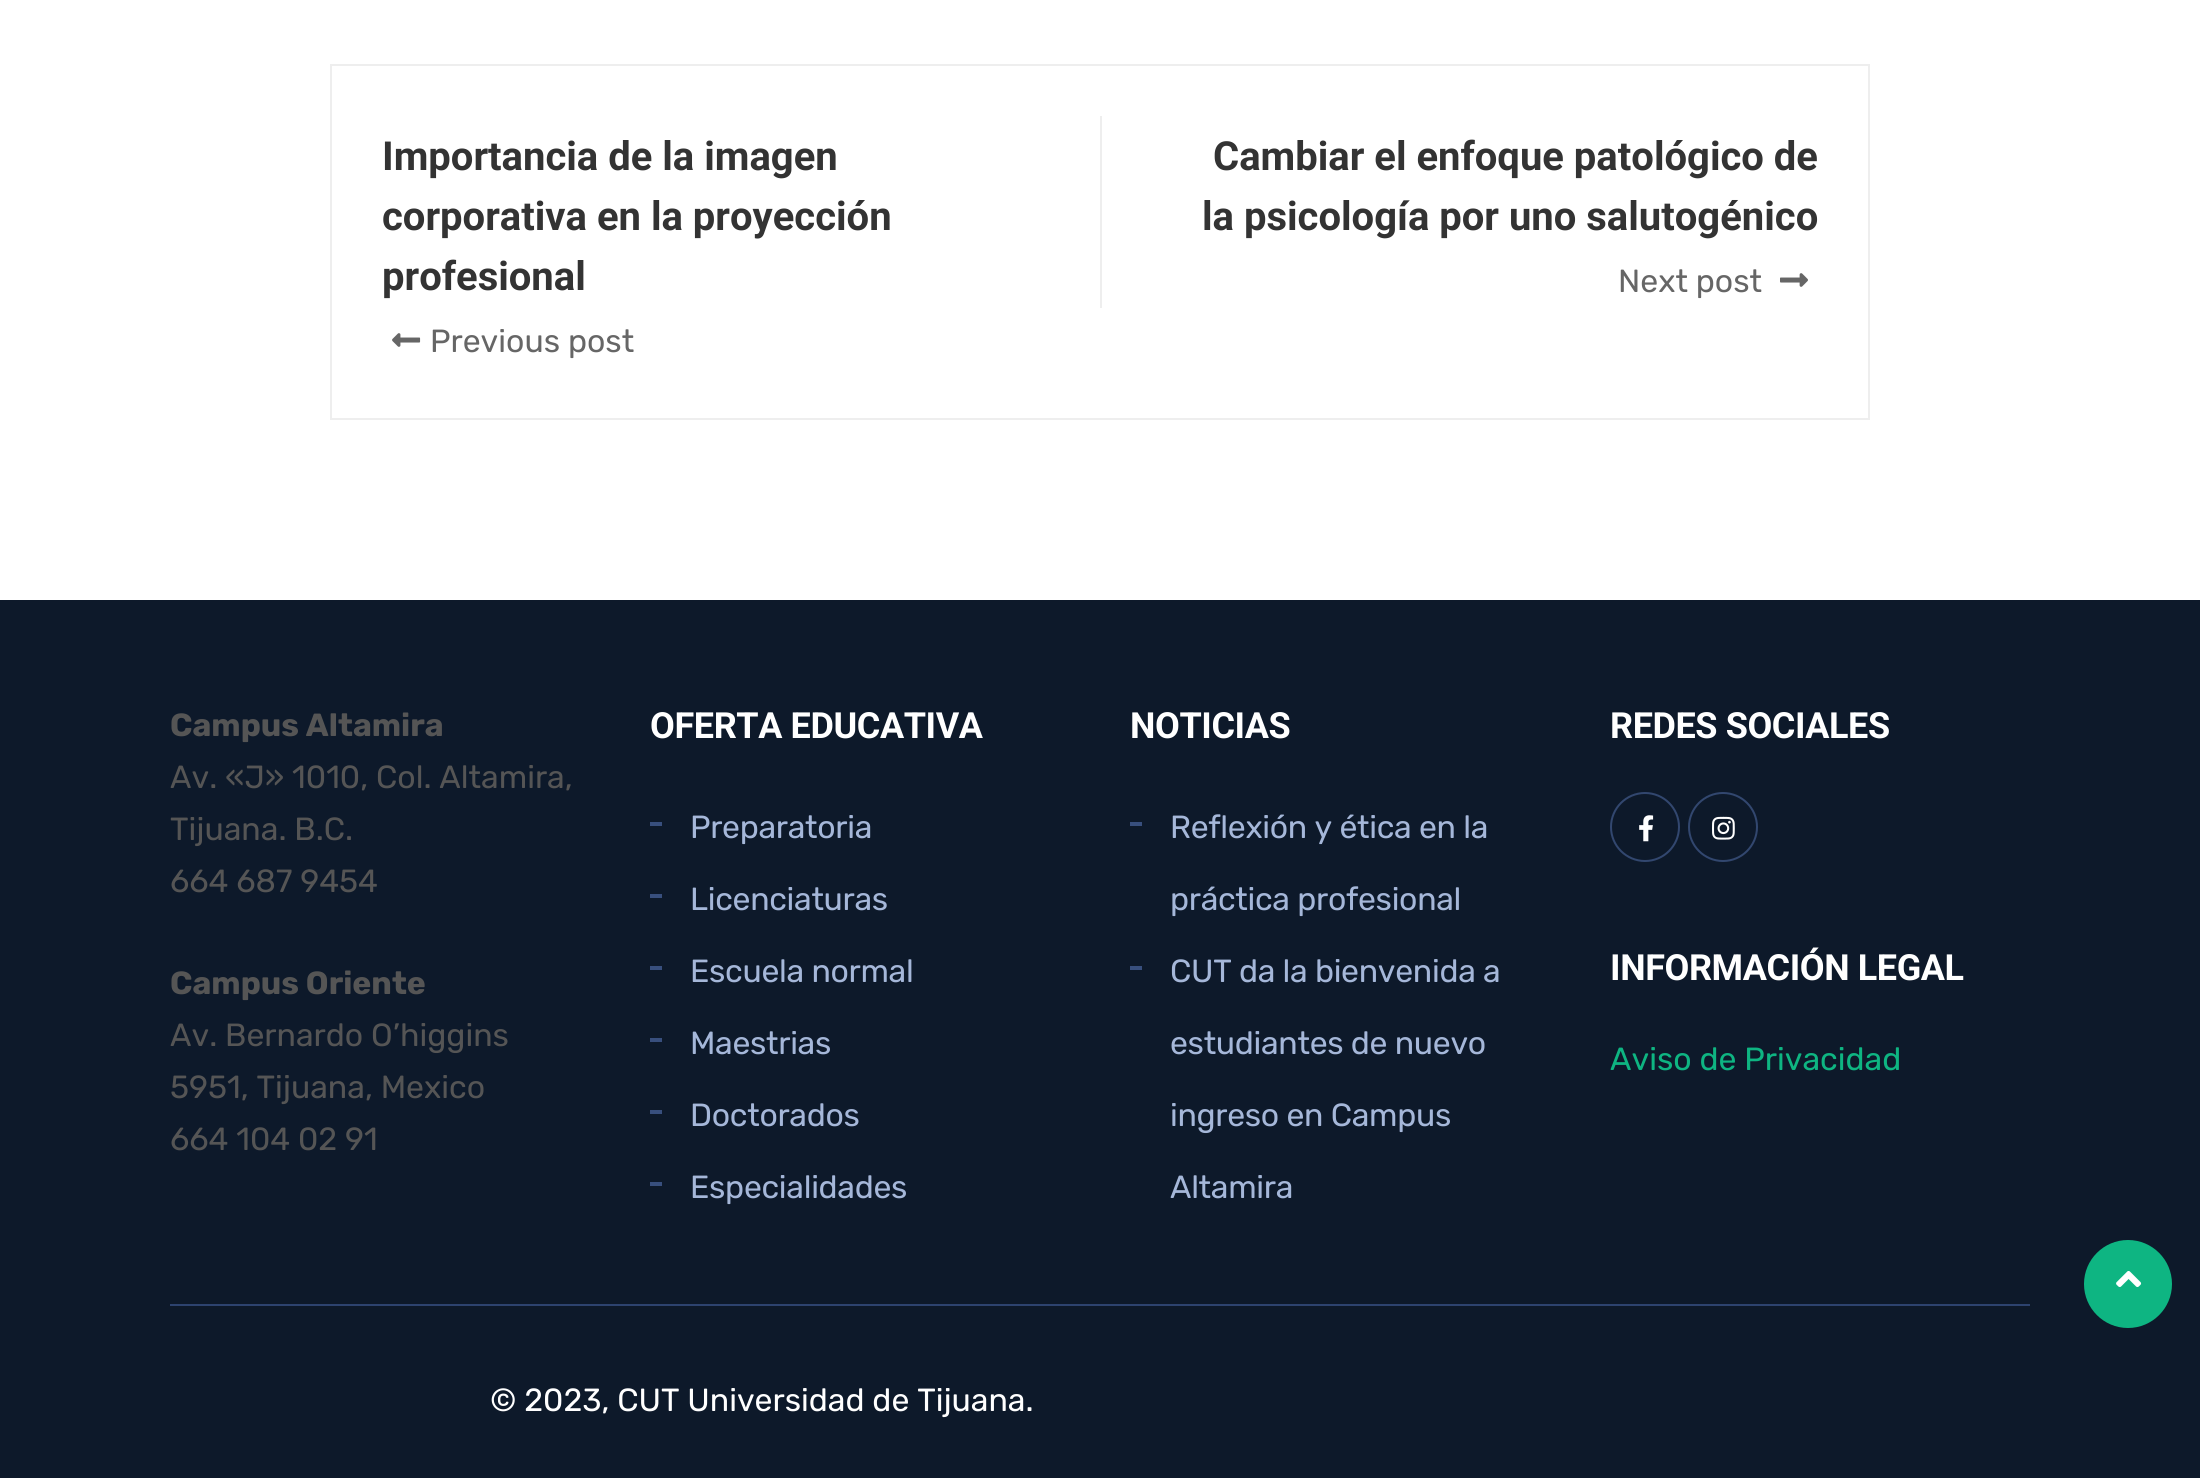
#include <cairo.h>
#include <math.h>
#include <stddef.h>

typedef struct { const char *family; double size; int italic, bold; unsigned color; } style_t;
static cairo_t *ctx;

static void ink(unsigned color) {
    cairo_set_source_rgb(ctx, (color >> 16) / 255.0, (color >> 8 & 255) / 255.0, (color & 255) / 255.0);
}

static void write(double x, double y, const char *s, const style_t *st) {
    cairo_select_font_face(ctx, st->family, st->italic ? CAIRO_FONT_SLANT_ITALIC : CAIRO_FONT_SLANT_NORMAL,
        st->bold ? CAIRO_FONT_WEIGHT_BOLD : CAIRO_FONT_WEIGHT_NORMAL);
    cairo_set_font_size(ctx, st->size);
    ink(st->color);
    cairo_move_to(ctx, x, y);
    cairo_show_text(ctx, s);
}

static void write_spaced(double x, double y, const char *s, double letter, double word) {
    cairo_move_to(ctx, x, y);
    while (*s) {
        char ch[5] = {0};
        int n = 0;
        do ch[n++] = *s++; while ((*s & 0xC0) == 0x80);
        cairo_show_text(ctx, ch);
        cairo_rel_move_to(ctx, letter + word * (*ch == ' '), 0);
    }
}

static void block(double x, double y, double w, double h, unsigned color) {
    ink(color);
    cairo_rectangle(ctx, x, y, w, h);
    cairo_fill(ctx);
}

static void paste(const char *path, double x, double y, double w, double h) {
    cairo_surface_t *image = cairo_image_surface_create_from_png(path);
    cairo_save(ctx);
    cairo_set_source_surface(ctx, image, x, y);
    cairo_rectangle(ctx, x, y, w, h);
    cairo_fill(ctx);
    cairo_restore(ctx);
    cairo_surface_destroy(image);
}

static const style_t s1 = {"Roboto", 40, 0, 1, 0x333333};
static const style_t s2 = {"Rubik", 32, 0, 0, 0x666666};
static const style_t s3 = {"Rubik", 32, 0, 1, 0x555555};
static const style_t s4 = {"Rubik", 32, 0, 0, 0x555555};
static const style_t s5 = {"Rubik", 32, 0, 0, 0x0eb582};
static const style_t s6 = {"Rubik", 32, 0, 0, 0xffffff};

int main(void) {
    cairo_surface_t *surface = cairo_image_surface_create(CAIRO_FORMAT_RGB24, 2200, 1478);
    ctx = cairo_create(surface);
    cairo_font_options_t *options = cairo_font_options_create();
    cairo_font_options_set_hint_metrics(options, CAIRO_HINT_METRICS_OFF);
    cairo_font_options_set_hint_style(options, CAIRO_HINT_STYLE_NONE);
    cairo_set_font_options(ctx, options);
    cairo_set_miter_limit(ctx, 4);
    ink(0xffffff);
    cairo_paint(ctx);
    cairo_rectangle(ctx, 331, 65, 1538, 354);
    ink(0xeeeeee);
    cairo_stroke(ctx);
    write(382, 170, "Importancia de la imagen", &s1);
    write(382, 230, "corporativa en la proyección", &s1);
    write(382, 290, "profesional", &s1);
    paste("pic1.png", 392, 333, 29, 14);
    write(430, 352, "Previous post", &s2);
    block(1100, 116, 2, 192, 0xeeeeee);
    write(1213, 170, "Cambiar el enfoque patológico de", &s1);
    write(1202, 230, "la psicología por uno salutogénico", &s1);
    write(1618, 292, "Next post", &s2);
    paste("pic2.png", 1780, 273, 28, 14);
    block(0, 600, 2200, 878, 0x0d192a);
    write(170, 736, "Campus Altamira", &s3);
    write(170, 788, "Av. «J» 1010, Col. Altamira,", &s4);
    write(170, 840, "Tijuana. B.C.", &s4);
    write(170, 892, "664 687 9454", &s4);
    write(170, 994, "Campus Oriente", &s3);
    write(170, 1046, "Av. Bernardo O’higgins", &s4);
    write(170, 1098, "5951, Tijuana, Mexico", &s4);
    write(170, 1150, "664 104 02 91", &s4);
    cairo_select_font_face(ctx, "Roboto", CAIRO_FONT_SLANT_NORMAL, CAIRO_FONT_WEIGHT_BOLD);
    cairo_set_font_size(ctx, 36);
    ink(0xffffff);
    write_spaced(650, 738, "OFERTA EDUCATIVA", -0.4, 0);
    block(650, 822, 12, 4, 0x384f7d);
    cairo_select_font_face(ctx, "Rubik", CAIRO_FONT_SLANT_NORMAL, CAIRO_FONT_WEIGHT_NORMAL);
    cairo_set_font_size(ctx, 32);
    ink(0xa5b7d9);
    write_spaced(690, 838, "Preparatoria", -0.3, 0);
    block(650, 894, 12, 4, 0x384f7d);
    ink(0xa5b7d9);
    write_spaced(690, 910, "Licenciaturas", -0.3, 0);
    block(650, 966, 12, 4, 0x384f7d);
    ink(0xa5b7d9);
    write_spaced(690, 982, "Escuela normal", -0.3, 0);
    block(650, 1038, 12, 4, 0x384f7d);
    ink(0xa5b7d9);
    write_spaced(690, 1054, "Maestrias", -0.3, 0);
    block(650, 1110, 12, 4, 0x384f7d);
    ink(0xa5b7d9);
    write_spaced(690, 1126, "Doctorados", -0.3, 0);
    block(650, 1182, 12, 4, 0x384f7d);
    ink(0xa5b7d9);
    write_spaced(690, 1198, "Especialidades", -0.3, 0);
    cairo_select_font_face(ctx, "Roboto", CAIRO_FONT_SLANT_NORMAL, CAIRO_FONT_WEIGHT_BOLD);
    cairo_set_font_size(ctx, 36);
    ink(0xffffff);
    write_spaced(1130, 738, "NOTICIAS", -0.4, 0);
    block(1130, 822, 12, 4, 0x384f7d);
    cairo_select_font_face(ctx, "Rubik", CAIRO_FONT_SLANT_NORMAL, CAIRO_FONT_WEIGHT_NORMAL);
    cairo_set_font_size(ctx, 32);
    ink(0xa5b7d9);
    write_spaced(1170, 838, "Reflexión y ética en la", -0.3, 0);
    write_spaced(1170, 910, "práctica profesional", -0.3, 0);
    block(1130, 966, 12, 4, 0x384f7d);
    ink(0xa5b7d9);
    write_spaced(1170, 982, "CUT da la bienvenida a", -0.3, 0);
    write_spaced(1170, 1054, "estudiantes de nuevo", -0.3, 0);
    write_spaced(1170, 1126, "ingreso en Campus", -0.3, 0);
    write_spaced(1170, 1198, "Altamira", -0.3, 0);
    cairo_select_font_face(ctx, "Roboto", CAIRO_FONT_SLANT_NORMAL, CAIRO_FONT_WEIGHT_BOLD);
    cairo_set_font_size(ctx, 36);
    ink(0xffffff);
    write_spaced(1610, 738, "REDES SOCIALES", -0.4, 0);
    cairo_new_path(ctx);
    cairo_arc(ctx, 1645, 827, 34, 0, 2 * M_PI);
    ink(0x32476f);
    cairo_stroke(ctx);
    paste("pic3.png", 1639, 815, 15, 27);
    cairo_arc(ctx, 1723, 827, 34, 0, 2 * M_PI);
    cairo_stroke(ctx);
    paste("pic4.png", 1712, 816, 23, 24);
    ink(0xffffff);
    write_spaced(1610, 980, "INFORMACIÓN LEGAL", -0.4, 0);
    write(1610, 1070, "Aviso de Privacidad", &s5);
    block(170, 1304, 1860, 2, 0x2d436f);
    write(490, 1411, "© 2023, CUT Universidad de Tijuana.", &s6);
    ink(0x0eb582);
    cairo_new_path(ctx);
    cairo_arc(ctx, 2128, 1284, 44, 0, 2 * M_PI);
    cairo_fill(ctx);
    paste("pic5.png", 2116, 1271, 26, 16);
    cairo_surface_write_to_png(surface, "screenshot.png");
    cairo_font_options_destroy(options);
    cairo_destroy(ctx);
    cairo_surface_destroy(surface);
    return 0;
}
